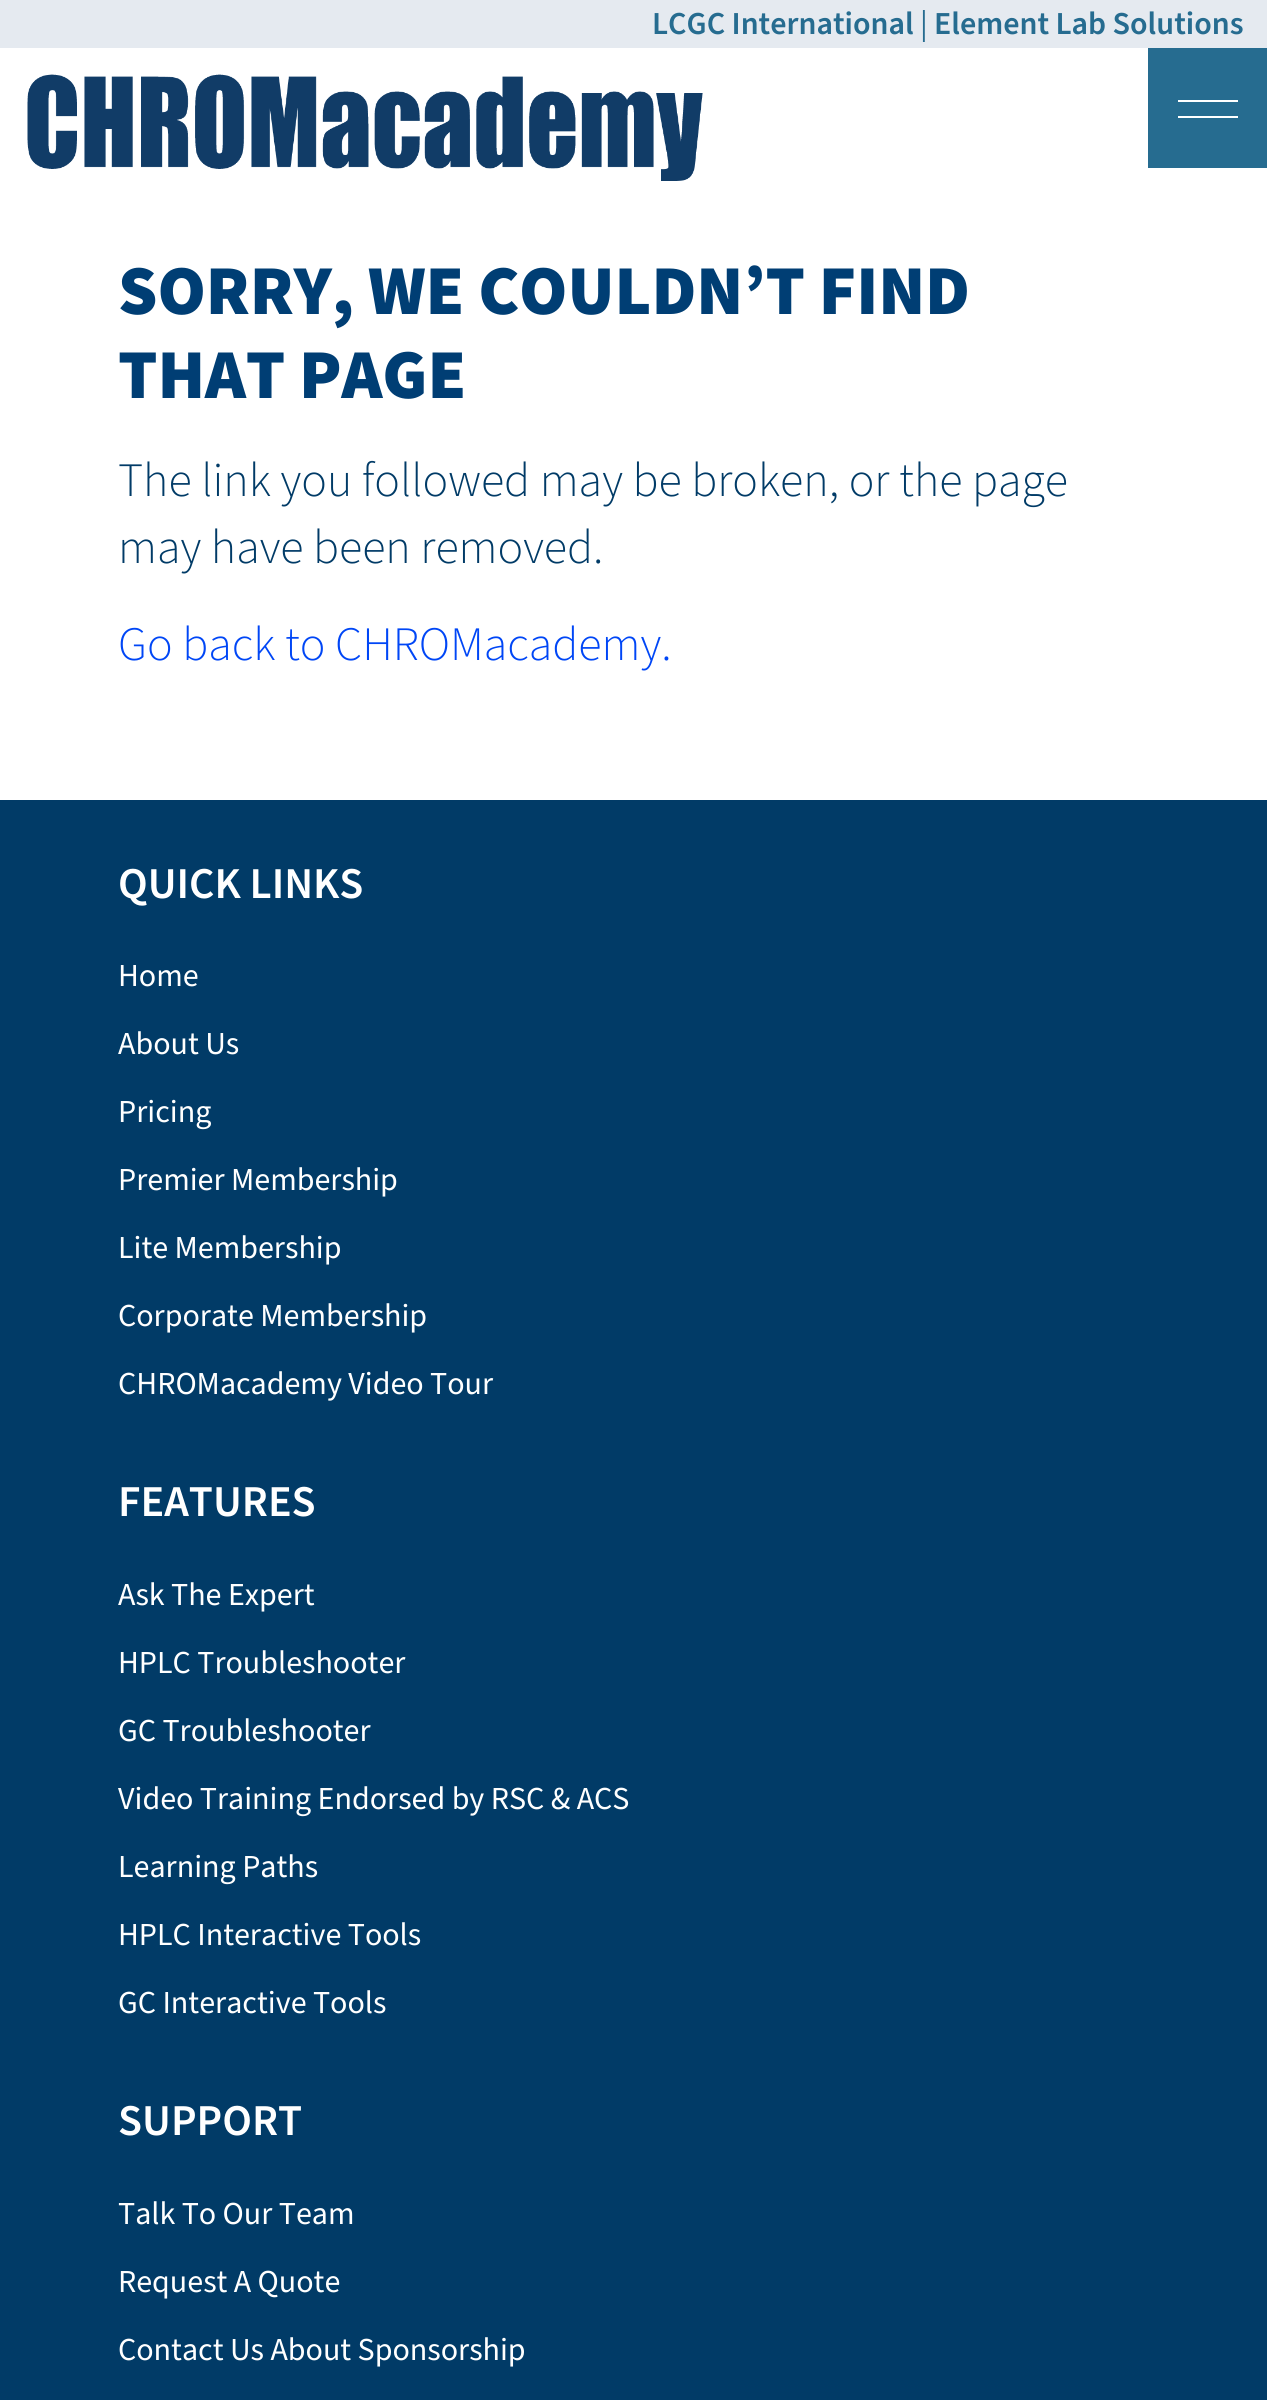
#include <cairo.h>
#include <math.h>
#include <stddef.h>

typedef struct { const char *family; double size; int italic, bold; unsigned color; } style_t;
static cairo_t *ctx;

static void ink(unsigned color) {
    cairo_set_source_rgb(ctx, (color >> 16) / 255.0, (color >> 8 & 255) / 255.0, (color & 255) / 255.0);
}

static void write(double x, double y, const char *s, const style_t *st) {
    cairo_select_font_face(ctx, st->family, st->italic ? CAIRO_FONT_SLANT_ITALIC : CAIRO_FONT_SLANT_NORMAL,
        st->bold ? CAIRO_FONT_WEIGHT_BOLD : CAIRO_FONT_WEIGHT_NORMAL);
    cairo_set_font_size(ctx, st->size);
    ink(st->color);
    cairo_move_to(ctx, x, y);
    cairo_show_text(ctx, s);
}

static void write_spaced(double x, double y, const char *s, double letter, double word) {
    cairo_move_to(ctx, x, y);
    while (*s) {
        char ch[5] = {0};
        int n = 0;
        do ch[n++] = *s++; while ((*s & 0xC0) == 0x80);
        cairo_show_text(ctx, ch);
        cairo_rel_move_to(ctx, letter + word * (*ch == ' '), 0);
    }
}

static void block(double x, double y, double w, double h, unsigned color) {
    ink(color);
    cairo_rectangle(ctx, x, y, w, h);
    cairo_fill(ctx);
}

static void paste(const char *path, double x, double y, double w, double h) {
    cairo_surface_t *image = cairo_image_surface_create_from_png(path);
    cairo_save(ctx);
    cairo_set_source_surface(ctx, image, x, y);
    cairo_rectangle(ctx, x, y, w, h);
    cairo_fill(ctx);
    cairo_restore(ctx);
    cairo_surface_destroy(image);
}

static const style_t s1 = {"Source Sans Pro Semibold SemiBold", 32, 0, 0, 0x266c90};
static const style_t s2 = {"Source Sans Pro", 32, 0, 0, 0x266c90};
static const style_t s3 = {"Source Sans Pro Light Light", 48, 0, 0, 0x013b67};
static const style_t s4 = {"Source Sans Pro Light Light", 48, 0, 0, 0x0046f6};
static const style_t s5 = {"Source Sans Pro Semibold SemiBold", 44, 0, 0, 0xffffff};
static const style_t s6 = {"Source Sans Pro", 32, 0, 0, 0xffffff};

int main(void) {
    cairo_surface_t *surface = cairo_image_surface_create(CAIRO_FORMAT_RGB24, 1267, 2400);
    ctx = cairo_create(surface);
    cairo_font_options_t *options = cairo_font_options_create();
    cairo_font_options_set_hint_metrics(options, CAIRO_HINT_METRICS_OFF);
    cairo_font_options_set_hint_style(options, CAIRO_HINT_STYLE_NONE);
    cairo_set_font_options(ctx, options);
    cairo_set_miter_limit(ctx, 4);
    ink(0xffffff);
    cairo_paint(ctx);
    block(0, 0, 1267, 48, 0xe5eaf0);
    write(652, 34, "LCGC International", &s1);
    write(920, 34, "|", &s2);
    write(934, 34, "Element Lab Solutions", &s1);
    paste("pic1.png", 27, 74, 676, 107);
    block(1148, 48, 119, 120, 0x266c90);
    block(1178, 100, 60, 2, 0xffffff);
    block(1178, 116, 60, 2, 0xffffff);
    cairo_select_font_face(ctx, "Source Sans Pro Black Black", CAIRO_FONT_SLANT_NORMAL, CAIRO_FONT_WEIGHT_NORMAL);
    cairo_set_font_size(ctx, 70);
    ink(0x003e74);
    write_spaced(118, 314, "SORRY, WE COULDN’T FIND", -0.1, 0);
    write_spaced(118, 398, "THAT PAGE", -0.1, 0);
    write(118, 496, "The link you followed may be broken, or the page", &s3);
    write(118, 563, "may have been removed.", &s3);
    write(118, 660, "Go back to CHROMacademy.", &s4);
    block(0, 800, 1267, 1600, 0x013b67);
    write(118, 898, "QUICK LINKS", &s5);
    write(118, 986, "Home", &s6);
    write(118, 1054, "About Us", &s6);
    write(118, 1122, "Pricing", &s6);
    write(118, 1190, "Premier Membership", &s6);
    write(118, 1258, "Lite Membership", &s6);
    write(118, 1326, "Corporate Membership", &s6);
    write(118, 1394, "CHROMacademy Video Tour", &s6);
    write(118, 1516, "FEATURES", &s5);
    write(118, 1605, "Ask The Expert", &s6);
    write(118, 1673, "HPLC Troubleshooter", &s6);
    write(118, 1741, "GC Troubleshooter", &s6);
    write(118, 1809, "Video Training Endorsed by RSC & ACS", &s6);
    write(118, 1877, "Learning Paths", &s6);
    write(118, 1945, "HPLC Interactive Tools", &s6);
    write(118, 2013, "GC Interactive Tools", &s6);
    write(118, 2135, "SUPPORT", &s5);
    write(118, 2224, "Talk To Our Team", &s6);
    write(118, 2292, "Request A Quote", &s6);
    write(118, 2360, "Contact Us About Sponsorship", &s6);
    cairo_surface_write_to_png(surface, "screenshot.png");
    cairo_font_options_destroy(options);
    cairo_destroy(ctx);
    cairo_surface_destroy(surface);
    return 0;
}
